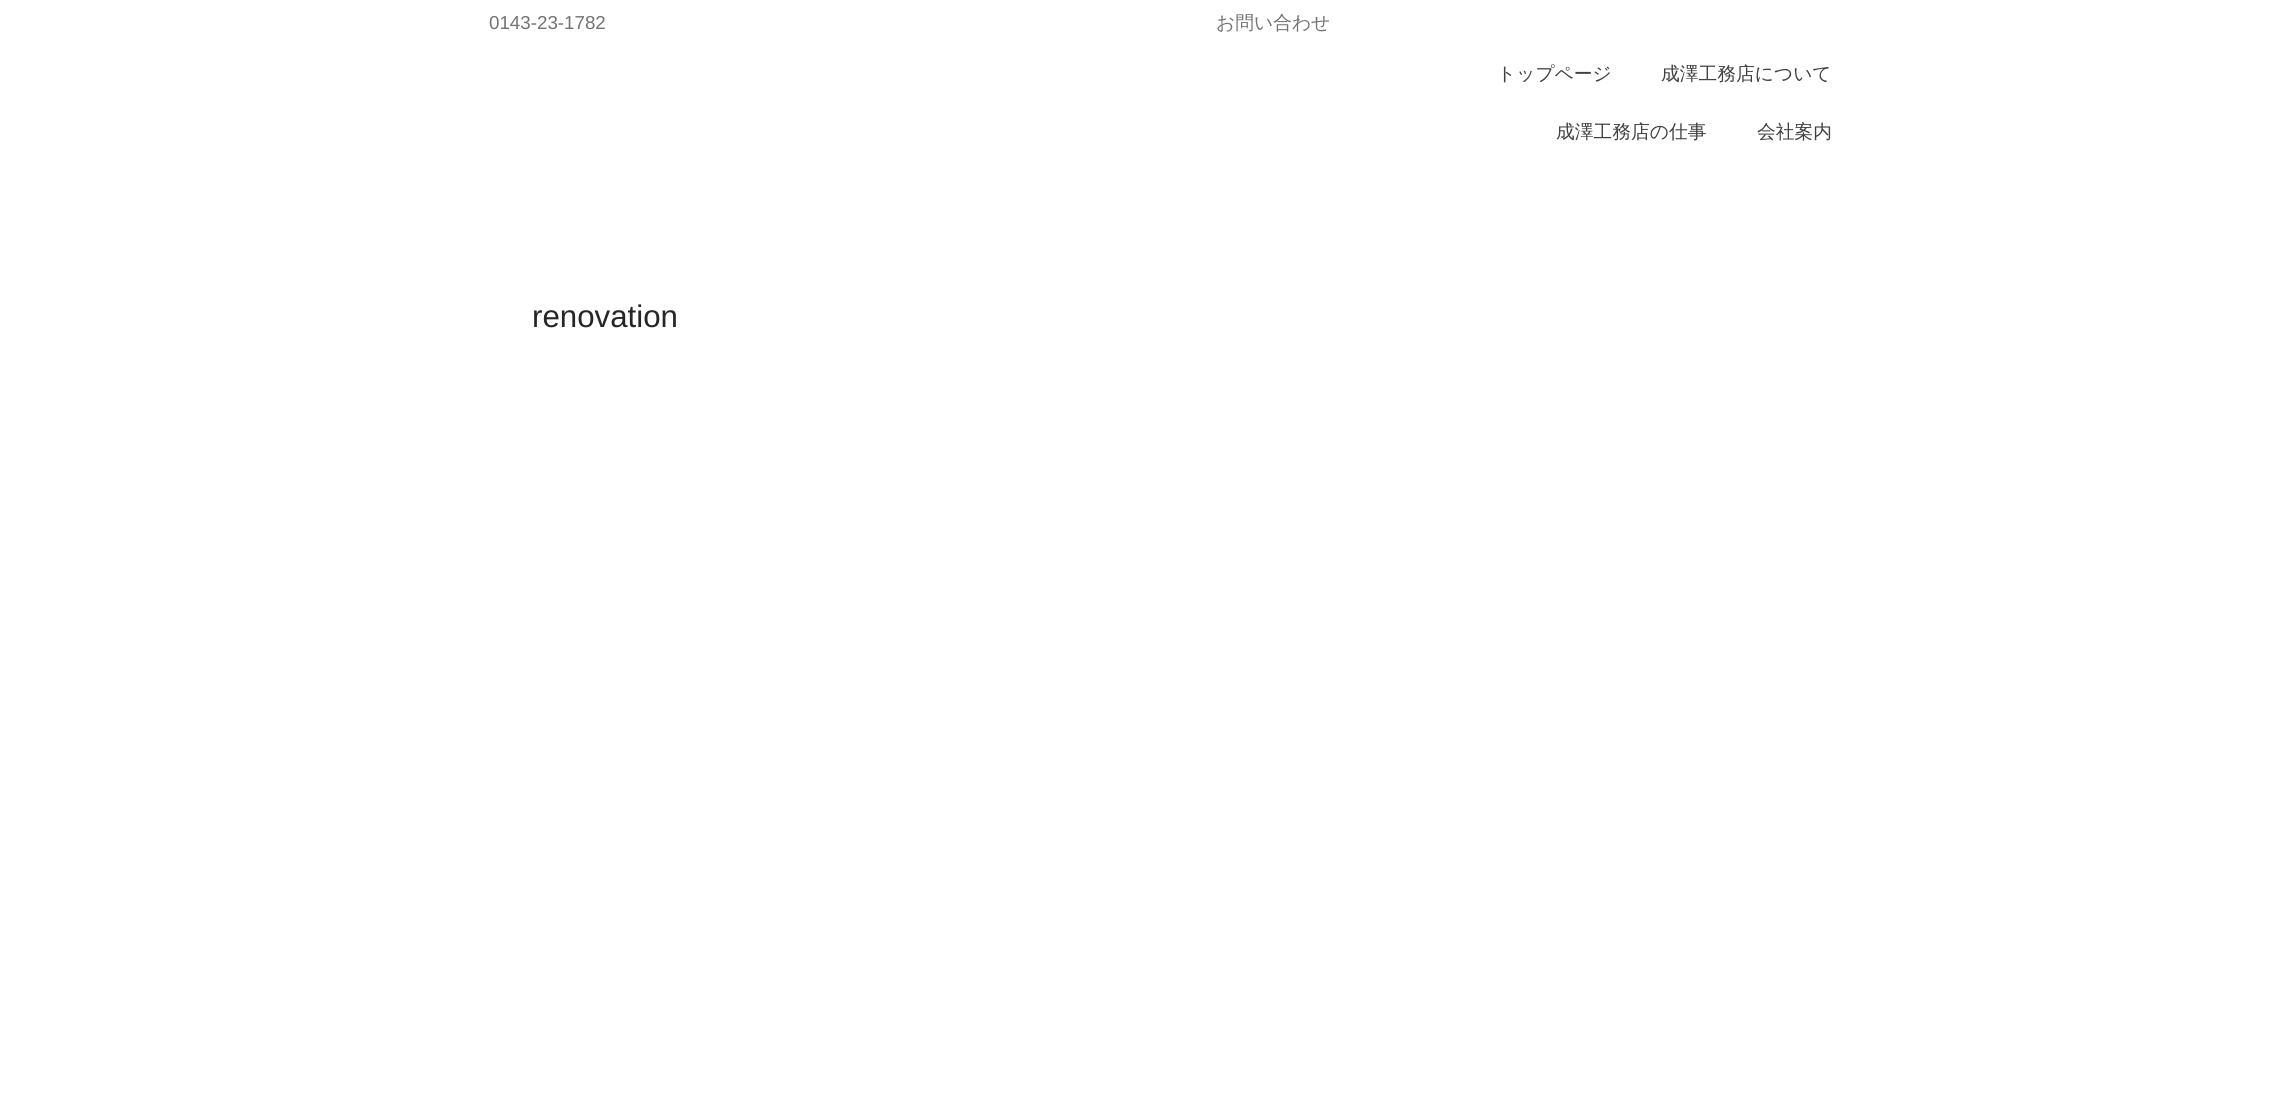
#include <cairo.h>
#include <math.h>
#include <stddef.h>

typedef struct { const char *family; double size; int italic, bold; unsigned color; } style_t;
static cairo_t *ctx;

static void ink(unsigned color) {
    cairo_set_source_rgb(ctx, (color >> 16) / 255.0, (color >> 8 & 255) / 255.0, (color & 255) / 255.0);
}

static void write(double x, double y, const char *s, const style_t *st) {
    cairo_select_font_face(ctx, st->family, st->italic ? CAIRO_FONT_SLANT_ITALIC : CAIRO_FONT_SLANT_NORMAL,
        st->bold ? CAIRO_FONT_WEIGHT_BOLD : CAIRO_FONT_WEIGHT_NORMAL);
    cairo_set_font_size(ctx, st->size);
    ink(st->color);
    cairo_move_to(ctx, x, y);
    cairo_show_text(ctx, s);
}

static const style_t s1 = {"Liberation Sans", 18.75, 0, 0, 0x737373};
static const style_t s2 = {"WenQuanYi Zen Hei Medium", 18.75, 0, 0, 0x737373};
static const style_t s3 = {"WenQuanYi Zen Hei Medium", 18.75, 0, 0, 0x404040};
static const style_t s4 = {"Liberation Sans", 31.25, 0, 0, 0x262626};

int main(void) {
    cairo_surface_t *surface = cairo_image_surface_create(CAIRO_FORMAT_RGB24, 2288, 1107);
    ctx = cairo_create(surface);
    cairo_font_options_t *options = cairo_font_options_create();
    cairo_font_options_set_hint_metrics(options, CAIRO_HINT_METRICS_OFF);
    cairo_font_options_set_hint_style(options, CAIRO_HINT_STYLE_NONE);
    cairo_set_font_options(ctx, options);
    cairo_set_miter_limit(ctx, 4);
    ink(0xffffff);
    cairo_paint(ctx);
    write(489, 29, "0143-23-1782", &s1);
    write(1216, 29, "お問い合わせ", &s2);
    write(1497, 80, "トップページ", &s3);
    write(1661, 80, "成澤工務店について", &s3);
    write(1556, 138, "成澤工務店の仕事", &s3);
    write(1757, 138, "会社案内", &s3);
    write(532, 327, "renovation", &s4);
    cairo_surface_write_to_png(surface, "screenshot.png");
    cairo_font_options_destroy(options);
    cairo_destroy(ctx);
    cairo_surface_destroy(surface);
    return 0;
}
